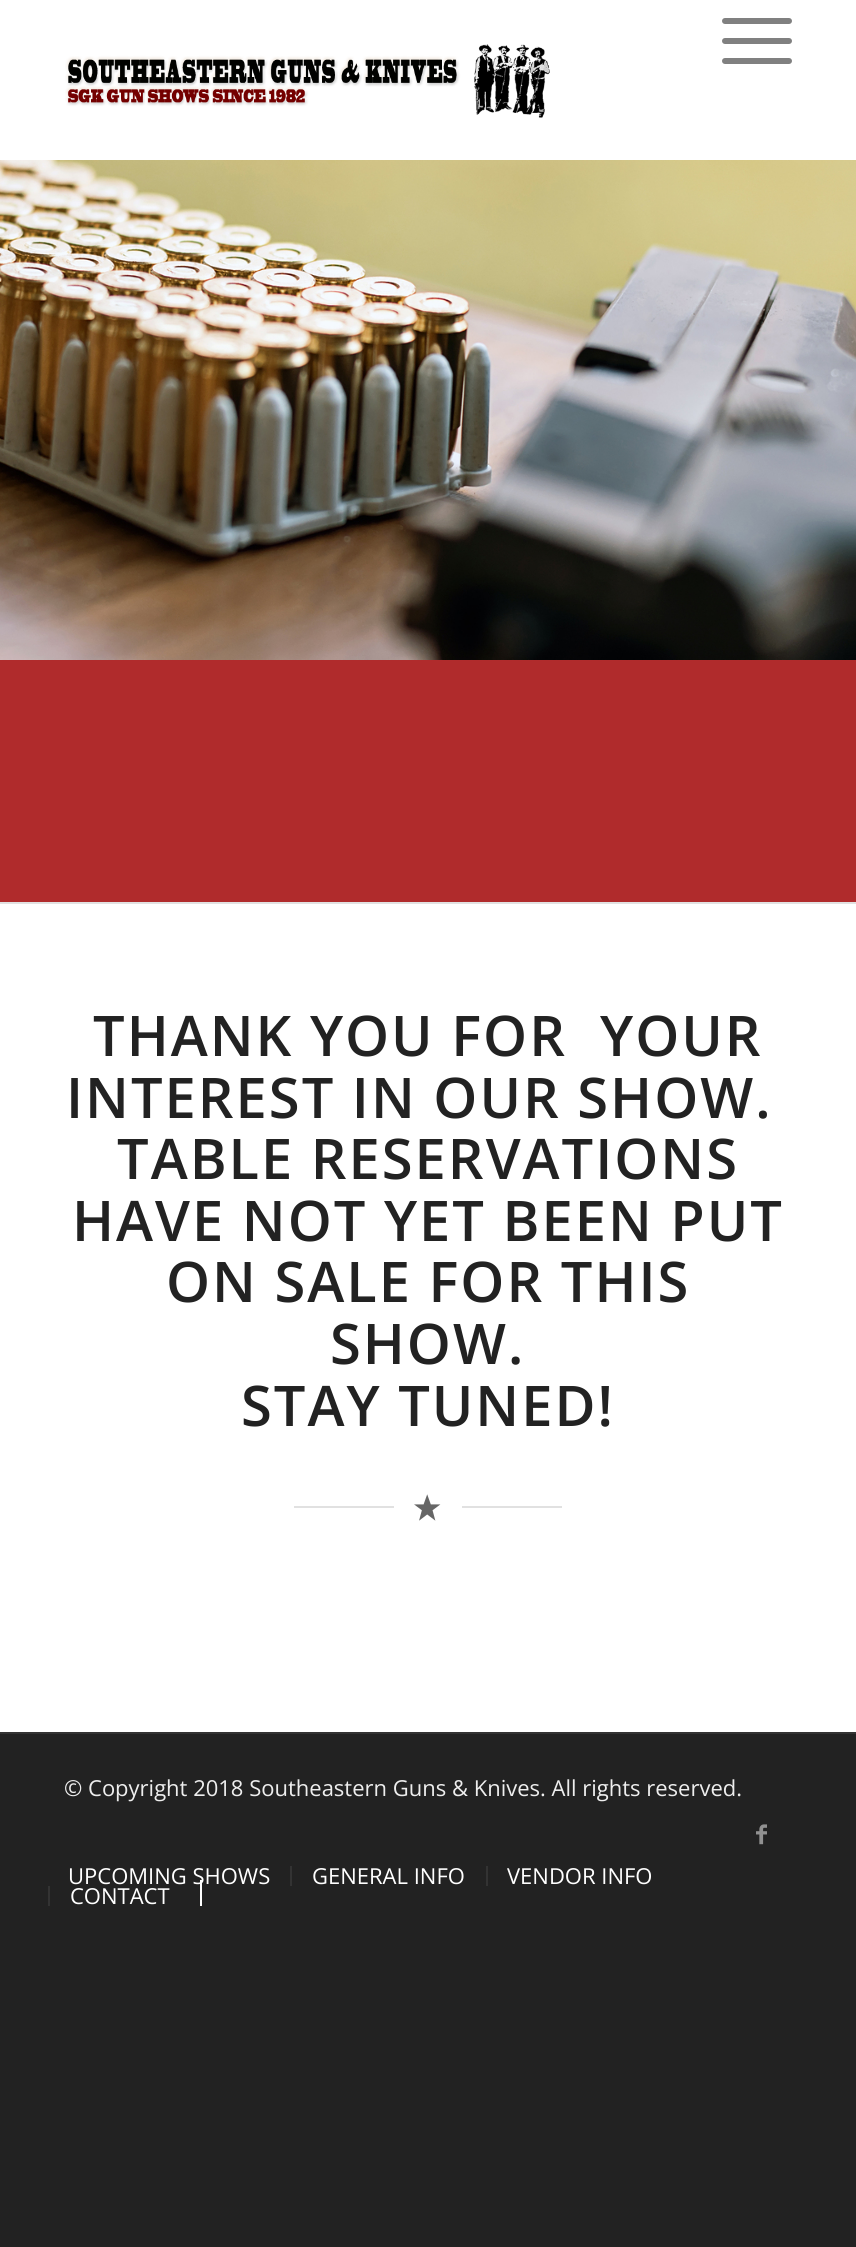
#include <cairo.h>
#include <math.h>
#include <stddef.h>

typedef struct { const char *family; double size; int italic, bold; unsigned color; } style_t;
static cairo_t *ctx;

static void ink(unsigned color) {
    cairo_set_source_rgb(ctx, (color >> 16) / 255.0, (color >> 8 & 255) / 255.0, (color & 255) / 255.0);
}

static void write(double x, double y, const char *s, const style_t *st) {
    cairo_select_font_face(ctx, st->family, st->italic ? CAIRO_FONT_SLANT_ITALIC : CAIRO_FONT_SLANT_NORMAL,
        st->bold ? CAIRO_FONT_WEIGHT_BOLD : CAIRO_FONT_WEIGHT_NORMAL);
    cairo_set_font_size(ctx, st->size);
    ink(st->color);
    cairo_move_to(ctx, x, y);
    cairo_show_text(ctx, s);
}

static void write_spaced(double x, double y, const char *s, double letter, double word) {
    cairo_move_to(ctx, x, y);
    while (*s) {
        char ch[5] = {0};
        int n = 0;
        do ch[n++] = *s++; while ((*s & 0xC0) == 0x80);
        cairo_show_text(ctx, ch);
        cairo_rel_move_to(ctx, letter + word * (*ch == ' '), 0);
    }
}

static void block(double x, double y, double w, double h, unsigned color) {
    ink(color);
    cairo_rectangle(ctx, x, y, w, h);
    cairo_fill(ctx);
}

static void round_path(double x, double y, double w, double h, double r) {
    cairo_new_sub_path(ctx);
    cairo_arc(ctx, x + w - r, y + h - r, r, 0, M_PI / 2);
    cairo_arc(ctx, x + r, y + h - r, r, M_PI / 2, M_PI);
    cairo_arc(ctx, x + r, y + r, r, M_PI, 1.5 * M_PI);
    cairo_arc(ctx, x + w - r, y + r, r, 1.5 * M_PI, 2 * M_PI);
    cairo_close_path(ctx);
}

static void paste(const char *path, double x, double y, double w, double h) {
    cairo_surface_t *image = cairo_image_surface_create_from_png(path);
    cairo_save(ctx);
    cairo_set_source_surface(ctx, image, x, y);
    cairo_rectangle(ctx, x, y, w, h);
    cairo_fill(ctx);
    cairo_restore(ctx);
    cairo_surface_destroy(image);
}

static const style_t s1 = {"Open Sans", 22, 0, 0, 0xeeeeee};
static const style_t s2 = {"Open Sans", 22, 0, 0, 0xffffff};

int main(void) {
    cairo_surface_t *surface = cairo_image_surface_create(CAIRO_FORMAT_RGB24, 856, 2247);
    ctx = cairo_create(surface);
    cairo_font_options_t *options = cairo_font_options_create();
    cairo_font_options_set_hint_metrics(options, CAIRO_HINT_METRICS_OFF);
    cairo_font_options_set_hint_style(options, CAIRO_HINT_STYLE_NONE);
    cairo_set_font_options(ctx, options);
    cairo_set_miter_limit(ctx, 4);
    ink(0x222222);
    cairo_paint(ctx);
    block(0, 0, 856, 160, 0xffffff);
    paste("pic1.png", 65, 44, 485, 74);
    ink(0x808080);
    round_path(722, 38, 70, 6, 3);
    cairo_fill(ctx);
    round_path(722, 18, 70, 6, 3);
    cairo_fill(ctx);
    round_path(722, 58, 70, 6, 3);
    cairo_fill(ctx);
    block(0, 904, 856, 828, 0xffffff);
    paste("pic2.png", 0, 160, 856, 500);
    block(0, 660, 856, 242, 0xb02b2c);
    block(0, 902, 856, 2, 0xe1e1e1);
    cairo_select_font_face(ctx, "Open Sans SemiBold", CAIRO_FONT_SLANT_NORMAL, CAIRO_FONT_WEIGHT_NORMAL);
    cairo_set_font_size(ctx, 56);
    ink(0x222222);
    write_spaced(93, 1056, "THANK YOU FOR  YOUR", 2, 0);
    write_spaced(66, 1118, "INTEREST IN OUR SHOW.", 2, 0);
    write_spaced(117, 1179, "TABLE RESERVATIONS", 2, 0);
    write_spaced(72, 1241, "HAVE NOT YET BEEN PUT", 2, 0);
    write_spaced(166, 1302, "ON SALE FOR THIS", 2, 0);
    write_spaced(330, 1364, "SHOW.", 2, 0);
    write_spaced(241, 1426, "STAY TUNED!", 2, 0);
    block(294, 1506, 100, 2, 0xe1e1e1);
    paste("pic3.png", 414, 1494, 27, 27);
    block(462, 1506, 100, 2, 0xe1e1e1);
    block(0, 1732, 856, 2, 0x333333);
    write(64, 1796, "© Copyright 2018 Southeastern Guns & Knives. All rights reserved.", &s1);
    paste("pic4.png", 756, 1824, 11, 21);
    write(68, 1884, "UPCOMING SHOWS", &s2);
    block(290, 1866, 2, 20, 0x333333);
    write(312, 1884, "GENERAL INFO", &s2);
    block(486, 1866, 2, 20, 0x333333);
    write(507, 1884, "VENDOR INFO", &s2);
    block(48, 1886, 2, 20, 0x333333);
    write(70, 1904, "CONTACT", &s2);
    block(200, 1880, 2, 26, 0xffffff);
    cairo_surface_write_to_png(surface, "screenshot.png");
    cairo_font_options_destroy(options);
    cairo_destroy(ctx);
    cairo_surface_destroy(surface);
    return 0;
}
